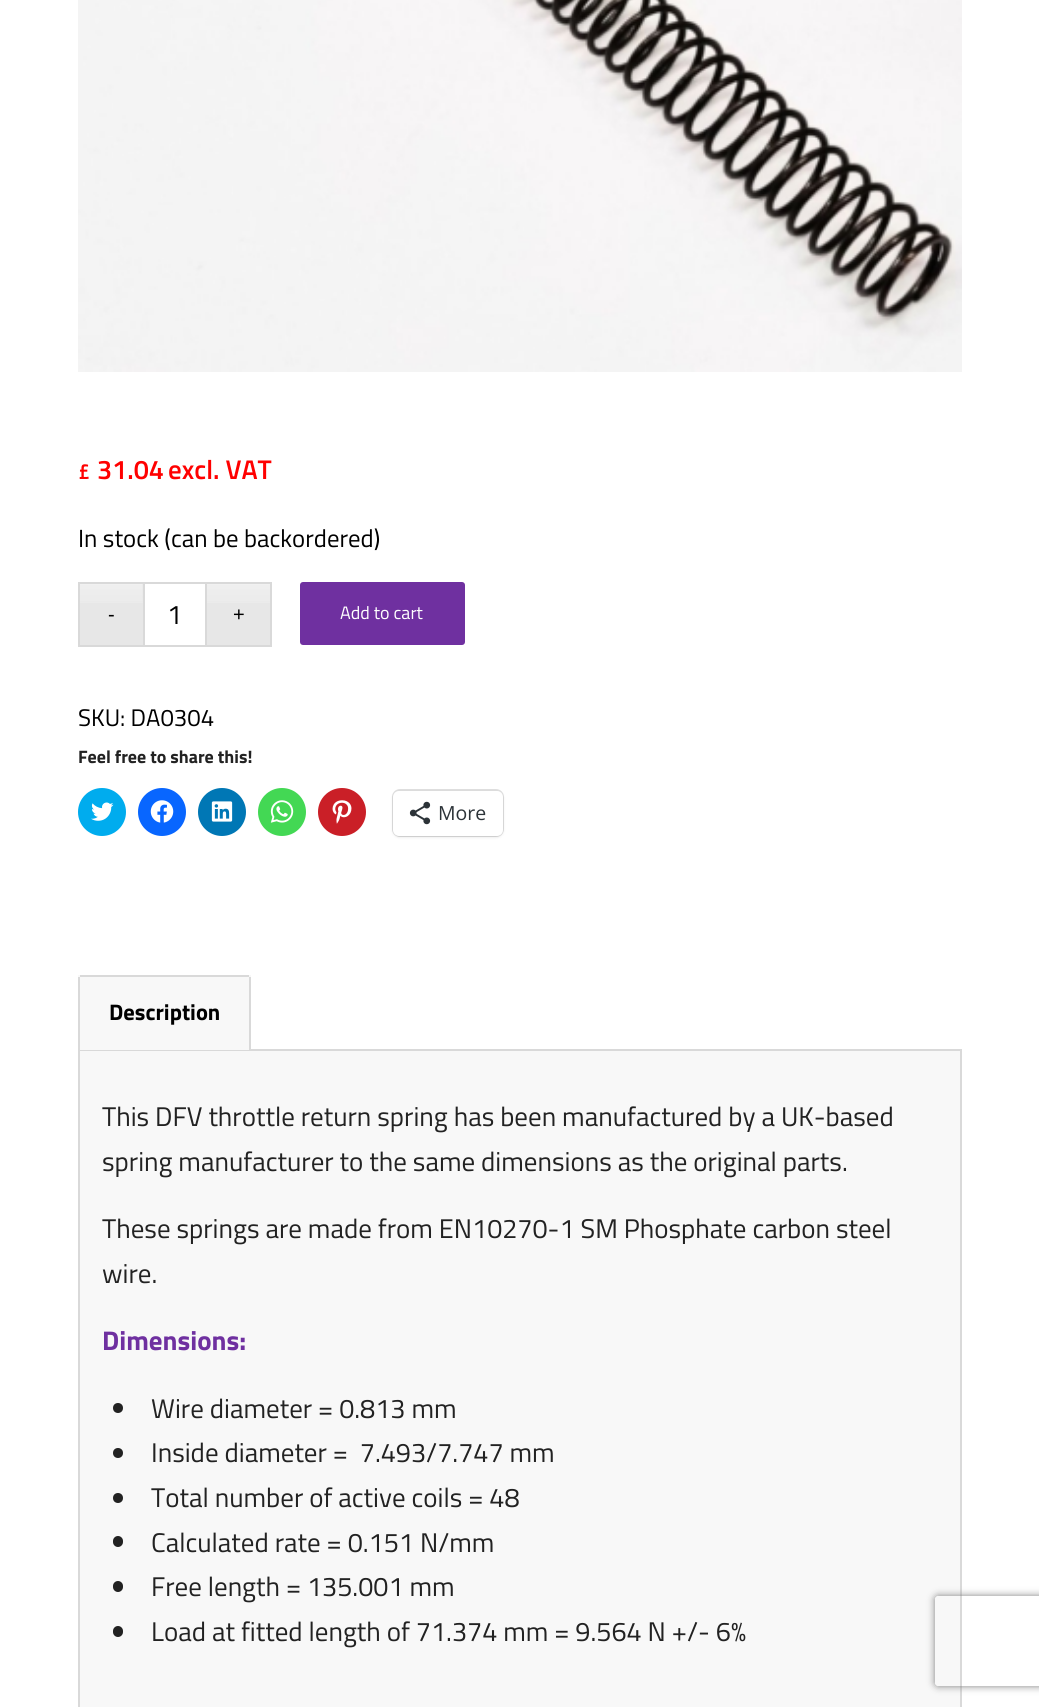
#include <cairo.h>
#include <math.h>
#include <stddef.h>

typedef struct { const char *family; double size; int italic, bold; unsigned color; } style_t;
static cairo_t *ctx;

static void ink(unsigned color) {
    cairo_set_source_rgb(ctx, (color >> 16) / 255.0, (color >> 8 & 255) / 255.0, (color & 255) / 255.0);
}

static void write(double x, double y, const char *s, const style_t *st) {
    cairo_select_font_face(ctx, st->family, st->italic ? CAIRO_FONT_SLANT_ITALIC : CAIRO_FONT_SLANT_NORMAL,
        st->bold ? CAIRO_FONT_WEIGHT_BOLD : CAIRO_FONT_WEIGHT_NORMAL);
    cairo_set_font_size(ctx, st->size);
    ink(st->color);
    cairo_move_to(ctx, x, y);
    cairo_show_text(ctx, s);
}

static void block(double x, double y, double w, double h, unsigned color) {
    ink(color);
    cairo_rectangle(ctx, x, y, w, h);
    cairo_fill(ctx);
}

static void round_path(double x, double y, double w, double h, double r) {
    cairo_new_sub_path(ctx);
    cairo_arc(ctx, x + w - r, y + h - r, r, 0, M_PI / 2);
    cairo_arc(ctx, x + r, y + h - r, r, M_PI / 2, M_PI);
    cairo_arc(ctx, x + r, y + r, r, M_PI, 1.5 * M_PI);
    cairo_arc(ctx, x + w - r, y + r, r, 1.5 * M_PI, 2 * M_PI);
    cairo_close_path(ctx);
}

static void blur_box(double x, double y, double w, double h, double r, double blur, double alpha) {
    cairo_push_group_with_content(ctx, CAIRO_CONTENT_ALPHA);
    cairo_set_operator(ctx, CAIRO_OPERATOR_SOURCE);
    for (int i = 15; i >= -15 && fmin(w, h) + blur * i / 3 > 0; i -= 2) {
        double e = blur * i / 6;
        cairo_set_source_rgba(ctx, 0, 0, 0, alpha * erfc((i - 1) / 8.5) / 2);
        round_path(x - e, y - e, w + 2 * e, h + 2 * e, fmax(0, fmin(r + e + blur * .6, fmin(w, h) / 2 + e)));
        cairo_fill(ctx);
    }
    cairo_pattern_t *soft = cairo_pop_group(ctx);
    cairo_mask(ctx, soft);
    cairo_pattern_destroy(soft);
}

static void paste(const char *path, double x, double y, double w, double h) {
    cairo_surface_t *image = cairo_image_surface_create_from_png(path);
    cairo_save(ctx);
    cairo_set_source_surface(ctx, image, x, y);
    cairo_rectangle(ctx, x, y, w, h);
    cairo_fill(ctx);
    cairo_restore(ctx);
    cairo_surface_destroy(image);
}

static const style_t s1 = {"Titillium Web SemiBold", 22, 0, 0, 0xff0000};
static const style_t s2 = {"Titillium Web SemiBold", 27, 0, 0, 0xff0000};
static const style_t s3 = {"Titillium Web", 24.8, 0, 0, 0x000000};
static const style_t s4 = {"Liberation Sans", 20, 0, 0, 0x000000};
static const style_t s5 = {"Titillium Web", 27, 0, 0, 0x000000};
static const style_t s6 = {"Titillium Web", 18, 0, 0, 0xffffff};
static const style_t s7 = {"Titillium Web", 24, 0, 0, 0x000000};
static const style_t s8 = {"Titillium Web", 18, 0, 1, 0x222222};
static const style_t s9 = {"Open Sans", 19.5, 0, 0, 0x2c3338};
static const style_t s10 = {"Titillium Web", 22.5, 0, 1, 0x000000};
static const style_t s11 = {"Titillium Web", 27, 0, 0, 0x222222};
static const style_t s12 = {"Titillium Web", 27, 0, 1, 0x6f30a0};

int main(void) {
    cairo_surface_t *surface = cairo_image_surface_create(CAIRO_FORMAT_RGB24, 1039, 1707);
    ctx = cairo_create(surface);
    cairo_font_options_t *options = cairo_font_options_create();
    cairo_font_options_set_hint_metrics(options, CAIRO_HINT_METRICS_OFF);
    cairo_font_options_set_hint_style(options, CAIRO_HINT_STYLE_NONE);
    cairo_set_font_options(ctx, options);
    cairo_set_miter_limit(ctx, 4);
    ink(0xffffff);
    cairo_paint(ctx);
    paste("pic1.png", 78, 0, 884, 372);
    write(78, 479, "£", &s1);
    write(97, 479, "31.04", &s2);
    write(168, 479, "excl. VAT", &s2);
    write(78, 547, "In stock (can be backordered)", &s3);
    block(80, 584, 63, 61, 0xe7e7e7);
    paste("pic2.png", 80, 584, 63, 19);
    block(207, 584, 63, 61, 0xe7e7e7);
    paste("pic3.png", 207, 584, 63, 19);
    write(108, 621, "-", &s4);
    block(78, 582, 65, 2, 0xd9d9d9);
    block(78, 645, 65, 2, 0xd9d9d9);
    block(78, 582, 2, 65, 0xd9d9d9);
    cairo_rectangle(ctx, 144, 583, 62, 63);
    cairo_stroke(ctx);
    write(167, 624, "1", &s5);
    write(233, 621, "+", &s4);
    block(207, 582, 65, 2, 0xd9d9d9);
    block(270, 582, 2, 65, 0xd9d9d9);
    block(207, 645, 65, 2, 0xd9d9d9);
    ink(0x6f30a0);
    round_path(300, 582, 165, 63, 3);
    cairo_fill(ctx);
    write(340, 619, "Add to cart", &s6);
    write(78, 726, "SKU: DA0304", &s7);
    write(78, 763, "Feel free to share this!", &s8);
    ink(0x00acee);
    cairo_new_path(ctx);
    cairo_arc(ctx, 102, 812, 24, 0, 2 * M_PI);
    cairo_fill(ctx);
    paste("pic4.png", 91, 802, 23, 19);
    ink(0x0866ff);
    cairo_arc(ctx, 162, 812, 24, 0, 2 * M_PI);
    cairo_fill(ctx);
    paste("pic5.png", 150, 800, 24, 23);
    ink(0x0077b5);
    cairo_arc(ctx, 222, 812, 24, 0, 2 * M_PI);
    cairo_fill(ctx);
    paste("pic6.png", 211, 801, 22, 21);
    ink(0x43d854);
    cairo_arc(ctx, 282, 812, 24, 0, 2 * M_PI);
    cairo_fill(ctx);
    paste("pic7.png", 270, 800, 24, 23);
    ink(0xca1f27);
    cairo_arc(ctx, 342, 812, 24, 0, 2 * M_PI);
    cairo_fill(ctx);
    paste("pic8.png", 332, 800, 20, 24);
    round_path(393, 790, 110, 46, 7);
    ink(0xe0e0e0);
    cairo_stroke(ctx);
    ink(0x000000);
    blur_box(393, 792, 110, 45, 6, 1.5, 0.12);
    ink(0xffffff);
    round_path(393, 791, 110, 45, 6);
    cairo_fill(ctx);
    paste("pic9.png", 409, 801, 22, 24);
    write(438, 820, "More", &s9);
    ink(0xf8f8f8);
    cairo_rectangle(ctx, 79, 1050, 882, 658);
    cairo_fill_preserve(ctx);
    ink(0xd9d9d9);
    cairo_stroke(ctx);
    block(78, 975, 173, 75, 0xf8f8f8);
    block(80, 975, 169, 2, 0xd9d9d9);
    block(249, 977, 2, 73, 0xd9d9d9);
    block(78, 977, 2, 73, 0xd9d9d9);
    write(109, 1020, "Description", &s10);
    write(102, 1126, "This DFV throttle return spring has been manufactured by a UK-based", &s11);
    write(102, 1171, "spring manufacturer to the same dimensions as the original parts.", &s11);
    write(102, 1238, "These springs are made from EN10270-1 SM Phosphate carbon steel", &s11);
    write(102, 1283, "wire.", &s11);
    write(102, 1350, "Dimensions:", &s12);
    ink(0x222222);
    cairo_new_path(ctx);
    cairo_arc(ctx, 118, 1408, 5, 0, 2 * M_PI);
    cairo_fill(ctx);
    write(151, 1418, "Wire diameter = 0.813 mm", &s11);
    cairo_new_path(ctx);
    cairo_arc(ctx, 118, 1453, 5, 0, 2 * M_PI);
    cairo_fill(ctx);
    write(151, 1462, "Inside diameter =  7.493/7.747 mm", &s11);
    cairo_new_path(ctx);
    cairo_arc(ctx, 118, 1498, 5, 0, 2 * M_PI);
    cairo_fill(ctx);
    write(151, 1507, "Total number of active coils = 48", &s11);
    round_path(113, 1536, 10, 11, 5);
    cairo_fill(ctx);
    write(151, 1552, "Calculated rate = 0.151 N/mm", &s11);
    round_path(113, 1581, 10, 11, 5);
    cairo_fill(ctx);
    write(151, 1596, "Free length = 135.001 mm", &s11);
    round_path(113, 1626, 10, 11, 5);
    cairo_fill(ctx);
    write(151, 1641, "Load at fitted length of 71.374 mm = 9.564 N +/- 6%", &s11);
    cairo_save(ctx);
    cairo_set_fill_rule(ctx, CAIRO_FILL_RULE_EVEN_ODD);
    cairo_new_path(ctx);
    cairo_move_to(ctx, 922, 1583);
    cairo_line_to(ctx, 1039, 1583);
    cairo_line_to(ctx, 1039, 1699);
    cairo_line_to(ctx, 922, 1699);
    cairo_close_path(ctx);
    cairo_move_to(ctx, 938, 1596);
    cairo_line_to(ctx, 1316, 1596);
    cairo_curve_to(ctx, 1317.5, 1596, 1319, 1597.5, 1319, 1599);
    cairo_line_to(ctx, 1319, 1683);
    cairo_curve_to(ctx, 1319, 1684.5, 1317.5, 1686, 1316, 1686);
    cairo_line_to(ctx, 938, 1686);
    cairo_curve_to(ctx, 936.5, 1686, 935, 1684.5, 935, 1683);
    cairo_line_to(ctx, 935, 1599);
    cairo_curve_to(ctx, 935, 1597.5, 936.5, 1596, 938, 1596);
    cairo_close_path(ctx);
    cairo_clip(ctx);
    ink(0x808080);
    blur_box(935, 1596, 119, 90, 3, 4, 1);
    cairo_restore(ctx);
    cairo_surface_write_to_png(surface, "screenshot.png");
    cairo_font_options_destroy(options);
    cairo_destroy(ctx);
    cairo_surface_destroy(surface);
    return 0;
}
